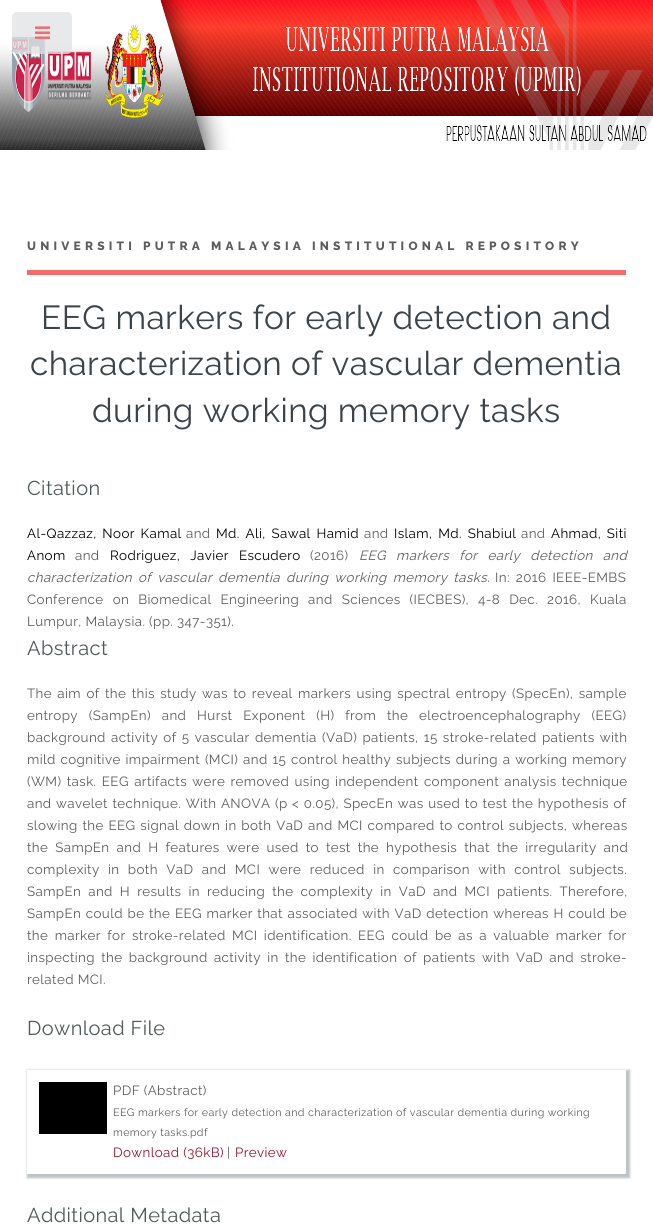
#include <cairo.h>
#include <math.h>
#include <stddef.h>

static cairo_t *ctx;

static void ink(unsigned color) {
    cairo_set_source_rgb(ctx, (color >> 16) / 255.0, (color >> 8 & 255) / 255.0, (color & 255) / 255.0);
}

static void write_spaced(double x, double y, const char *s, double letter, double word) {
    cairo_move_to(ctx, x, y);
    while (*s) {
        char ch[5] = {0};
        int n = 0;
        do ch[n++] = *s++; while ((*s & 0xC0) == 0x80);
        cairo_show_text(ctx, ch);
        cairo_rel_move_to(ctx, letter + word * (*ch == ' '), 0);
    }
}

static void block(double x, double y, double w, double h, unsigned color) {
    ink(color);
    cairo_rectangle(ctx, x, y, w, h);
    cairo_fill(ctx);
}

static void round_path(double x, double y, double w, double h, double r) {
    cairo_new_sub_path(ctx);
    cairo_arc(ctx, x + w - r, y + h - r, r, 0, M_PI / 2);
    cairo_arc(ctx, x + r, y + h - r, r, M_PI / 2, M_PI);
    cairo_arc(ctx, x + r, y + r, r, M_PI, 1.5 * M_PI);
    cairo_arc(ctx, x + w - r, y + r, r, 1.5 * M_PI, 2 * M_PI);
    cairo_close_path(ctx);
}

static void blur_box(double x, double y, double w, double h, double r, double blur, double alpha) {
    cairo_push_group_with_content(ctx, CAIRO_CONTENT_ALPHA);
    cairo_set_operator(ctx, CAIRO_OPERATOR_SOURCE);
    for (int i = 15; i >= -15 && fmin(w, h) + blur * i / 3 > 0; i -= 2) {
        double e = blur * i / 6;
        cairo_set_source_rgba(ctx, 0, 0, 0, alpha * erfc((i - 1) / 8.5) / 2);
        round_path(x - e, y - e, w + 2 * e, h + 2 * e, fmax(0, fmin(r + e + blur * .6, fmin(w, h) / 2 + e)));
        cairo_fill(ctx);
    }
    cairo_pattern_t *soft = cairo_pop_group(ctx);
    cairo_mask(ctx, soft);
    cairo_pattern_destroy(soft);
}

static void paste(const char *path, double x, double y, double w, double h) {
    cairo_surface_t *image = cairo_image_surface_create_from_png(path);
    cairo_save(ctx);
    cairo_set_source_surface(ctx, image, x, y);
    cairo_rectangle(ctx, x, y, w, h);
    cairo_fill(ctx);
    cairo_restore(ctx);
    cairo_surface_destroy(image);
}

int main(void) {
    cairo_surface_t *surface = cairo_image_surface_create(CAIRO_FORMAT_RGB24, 653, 1226);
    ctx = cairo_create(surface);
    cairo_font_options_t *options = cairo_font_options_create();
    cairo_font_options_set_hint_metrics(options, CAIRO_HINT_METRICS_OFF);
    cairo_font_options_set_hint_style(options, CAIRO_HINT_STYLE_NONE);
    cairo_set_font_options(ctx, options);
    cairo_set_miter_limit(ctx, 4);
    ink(0xffffff);
    cairo_paint(ctx);
    paste("pic1.png", 0, 0, 653, 150);
    cairo_set_source_rgba(ctx, 0.871, 0.882, 0.886, 0.75);
    round_path(12, 12, 60, 42, 5);
    cairo_fill(ctx);
    paste("pic2.png", 35, 26, 16, 13);
    block(27, 270, 599, 5, 0xf56a6a);
    cairo_select_font_face(ctx, "Raleway ExtraBold", CAIRO_FONT_SLANT_NORMAL, CAIRO_FONT_WEIGHT_NORMAL);
    cairo_set_font_size(ctx, 12);
    ink(0x5d5d5d);
    write_spaced(27, 250, "UNIVERSITI PUTRA MALAYSIA INSTITUTIONAL REPOSITORY", 4.2, 0);
    cairo_select_font_face(ctx, "Raleway", CAIRO_FONT_SLANT_NORMAL, CAIRO_FONT_WEIGHT_NORMAL);
    cairo_set_font_size(ctx, 33.3);
    ink(0x3d4449);
    write_spaced(41, 329, "EEG markers for early detection and", 0.4, 0);
    write_spaced(30, 375, "characterization of vascular dementia", 0.4, 0);
    write_spaced(92, 422, "during working memory tasks", 0.4, 0);
    cairo_set_font_size(ctx, 20);
    ink(0x515a5a);
    write_spaced(27, 495, "Citation", 0.4, 0);
    cairo_set_font_size(ctx, 13.35);
    ink(0x000000);
    write_spaced(27, 538, "Al-Qazzaz, Noor Kamal", 0.4, 2);
    ink(0x5d5d5d);
    write_spaced(186, 538, "and", 0.4, 0);
    ink(0x000000);
    write_spaced(216, 538, "Md. Ali, Sawal Hamid", 0.4, 2);
    ink(0x5d5d5d);
    write_spaced(364, 538, "and", 0.4, 0);
    ink(0x000000);
    write_spaced(394, 538, "Islam, Md. Shabiul", 0.4, 2);
    ink(0x5d5d5d);
    write_spaced(521, 538, "and", 0.4, 0);
    ink(0x000000);
    write_spaced(551, 538, "Ahmad, Siti", 0.4, 2);
    write_spaced(27, 560, "Anom", 0.4, 0);
    ink(0x5d5d5d);
    write_spaced(75, 560, "and", 0.4, 0);
    ink(0x000000);
    write_spaced(110, 560, "Rodriguez, Javier Escudero", 0.4, 6.25);
    ink(0x5d5d5d);
    write_spaced(310, 560, "(2016)", 0.4, 0);
    cairo_select_font_face(ctx, "Raleway", CAIRO_FONT_SLANT_ITALIC, CAIRO_FONT_WEIGHT_NORMAL);
    write_spaced(359, 560, "EEG markers for early detection and", 0.4, 6.25);
    write_spaced(27, 582, "characterization of vascular dementia during working memory tasks.", 0.4, 2.25);
    cairo_select_font_face(ctx, "Raleway", CAIRO_FONT_SLANT_NORMAL, CAIRO_FONT_WEIGHT_NORMAL);
    write_spaced(495, 582, "In: 2016 IEEE-EMBS", 0.4, 2.25);
    write_spaced(27, 604, "Conference on Biomedical Engineering and Sciences (IECBES), 4-8 Dec. 2016, Kuala", 0.4, 5.25);
    write_spaced(27, 626, "Lumpur, Malaysia. (pp. 347-351).", 0.4, 0);
    cairo_set_font_size(ctx, 20);
    ink(0x515a5a);
    write_spaced(27, 655, "Abstract", 0.4, 0);
    cairo_set_font_size(ctx, 13.35);
    ink(0x5d5d5d);
    write_spaced(27, 698, "The aim of the this study was to reveal markers using spectral entropy (SpecEn), sample", 0.4, 1.6);
    write_spaced(27, 720, "entropy (SampEn) and Hurst Exponent (H) from the electroencephalography (EEG)", 0.4, 7);
    write_spaced(27, 742, "background activity of 5 vascular dementia (VaD) patients, 15 stroke-related patients with", 0.4, 1.5);
    write_spaced(27, 764, "mild cognitive impairment (MCI) and 15 control healthy subjects during a working memory", 0.4, 1);
    write_spaced(27, 786, "(WM) task. EEG artifacts were removed using independent component analysis technique", 0.4, 1.5);
    write_spaced(27, 808, "and wavelet technique. With ANOVA (p < 0.05), SpecEn was used to test the hypothesis of", 0.4, 0.75);
    write_spaced(27, 830, "slowing the EEG signal down in both VaD and MCI compared to control subjects, whereas", 0.4, 1);
    write_spaced(27, 852, "the SampEn and H features were used to test the hypothesis that the irregularity and", 0.4, 3.25);
    write_spaced(27, 874, "complexity in both VaD and MCI were reduced in comparison with control subjects.", 0.4, 4.6);
    write_spaced(27, 896, "SampEn and H results in reducing the complexity in VaD and MCI patients. Therefore,", 0.4, 3.25);
    write_spaced(27, 918, "SampEn could be the EEG marker that associated with VaD detection whereas H could be", 0.4, 0.8);
    write_spaced(27, 940, "the marker for stroke-related MCI identification. EEG could be as a valuable marker for", 0.4, 2.6);
    write_spaced(27, 962, "inspecting the background activity in the identification of patients with VaD and stroke-", 0.4, 2.5);
    write_spaced(27, 984, "related MCI.", 0.4, 0);
    cairo_set_font_size(ctx, 20);
    ink(0x515a5a);
    write_spaced(27, 1035, "Download File", 0.4, 0);
    cairo_save(ctx);
    cairo_set_fill_rule(ctx, CAIRO_FILL_RULE_EVEN_ODD);
    cairo_new_path(ctx);
    cairo_move_to(ctx, 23, 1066);
    cairo_line_to(ctx, 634, 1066);
    cairo_line_to(ctx, 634, 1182);
    cairo_line_to(ctx, 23, 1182);
    cairo_close_path(ctx);
    cairo_move_to(ctx, 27, 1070);
    cairo_line_to(ctx, 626, 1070);
    cairo_line_to(ctx, 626, 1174);
    cairo_line_to(ctx, 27, 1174);
    cairo_close_path(ctx);
    cairo_clip(ctx);
    ink(0xbdc3c7);
    blur_box(27, 1070, 603, 108, 0, 1, 1);
    cairo_restore(ctx);
    block(39, 1082, 68, 52, 0x000000);
    cairo_set_font_size(ctx, 13.35);
    ink(0x5d5d5d);
    write_spaced(113, 1095, "PDF (Abstract)", 0.4, 0);
    cairo_set_font_size(ctx, 10.65);
    write_spaced(113, 1116, "EEG markers for early detection and characterization of vascular dementia during working", 0.4, 0);
    write_spaced(113, 1136, "memory tasks.pdf", 0.4, 0);
    cairo_set_font_size(ctx, 13.35);
    ink(0x99142a);
    write_spaced(113, 1157, "Download (36kB)", 0.4, 0);
    ink(0x5d5d5d);
    write_spaced(227, 1157, "|", 0.4, 0);
    ink(0x99142a);
    write_spaced(235, 1157, "Preview", 0.4, 0);
    cairo_set_font_size(ctx, 20);
    ink(0x515a5a);
    write_spaced(27, 1222, "Additional Metadata", 0.4, 0);
    cairo_surface_write_to_png(surface, "screenshot.png");
    cairo_font_options_destroy(options);
    cairo_destroy(ctx);
    cairo_surface_destroy(surface);
    return 0;
}
